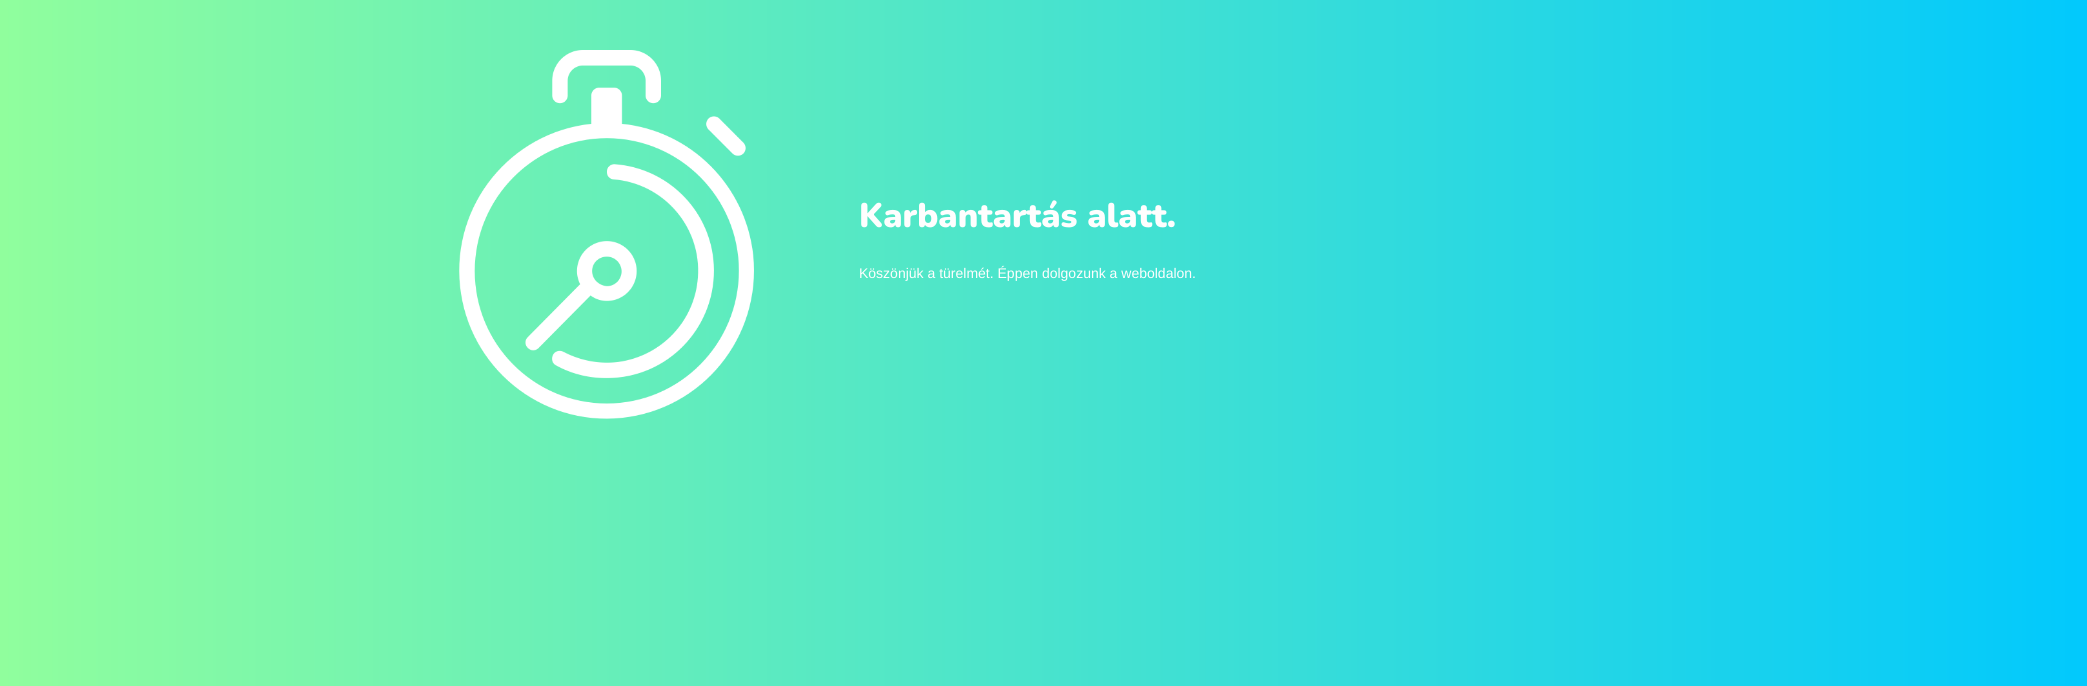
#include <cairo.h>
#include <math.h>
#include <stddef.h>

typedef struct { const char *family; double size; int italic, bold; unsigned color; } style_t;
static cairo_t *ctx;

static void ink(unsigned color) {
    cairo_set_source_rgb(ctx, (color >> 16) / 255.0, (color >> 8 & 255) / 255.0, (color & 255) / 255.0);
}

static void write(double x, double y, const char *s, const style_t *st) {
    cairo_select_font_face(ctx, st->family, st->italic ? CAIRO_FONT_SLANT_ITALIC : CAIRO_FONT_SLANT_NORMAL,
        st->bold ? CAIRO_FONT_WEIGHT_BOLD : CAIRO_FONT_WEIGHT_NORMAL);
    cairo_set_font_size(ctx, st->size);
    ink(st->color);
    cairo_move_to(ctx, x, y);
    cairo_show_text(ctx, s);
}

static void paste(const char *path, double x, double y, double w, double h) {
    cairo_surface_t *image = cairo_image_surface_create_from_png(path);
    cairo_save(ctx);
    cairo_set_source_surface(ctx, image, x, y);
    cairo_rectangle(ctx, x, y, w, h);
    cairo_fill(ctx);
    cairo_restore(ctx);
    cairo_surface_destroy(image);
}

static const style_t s1 = {"Nunito ExtraLight", 34, 0, 0, 0xfefefe};
static const style_t s2 = {"Liberation Sans", 14, 0, 0, 0xfefefe};

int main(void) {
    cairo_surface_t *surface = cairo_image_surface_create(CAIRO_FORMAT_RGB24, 2087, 686);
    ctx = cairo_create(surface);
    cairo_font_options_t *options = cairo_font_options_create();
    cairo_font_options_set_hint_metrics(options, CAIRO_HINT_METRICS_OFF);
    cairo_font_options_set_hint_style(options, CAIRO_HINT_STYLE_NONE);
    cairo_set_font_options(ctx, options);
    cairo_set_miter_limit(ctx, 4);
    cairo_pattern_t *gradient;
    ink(0xffffff);
    cairo_paint(ctx);
    gradient = cairo_pattern_create_linear(0, 343, 2087, 343);
    cairo_pattern_add_color_stop_rgba(gradient, 0, 0.565, 0.996, 0.616, 1);
    cairo_pattern_add_color_stop_rgba(gradient, 1, 0.004, 0.788, 0.992, 1);
    cairo_set_source(ctx, gradient);
    cairo_pattern_destroy(gradient);
    cairo_rectangle(ctx, 0, 0, 2087, 686);
    cairo_fill(ctx);
    paste("pic1.png", 459, 50, 295, 369);
    paste("pic2.png", 525, 241, 112, 110);
    write(859, 227, "Karbantartás alatt.", &s1);
    write(859, 278, "Köszönjük a türelmét. Éppen dolgozunk a weboldalon.", &s2);
    cairo_surface_write_to_png(surface, "screenshot.png");
    cairo_font_options_destroy(options);
    cairo_destroy(ctx);
    cairo_surface_destroy(surface);
    return 0;
}
